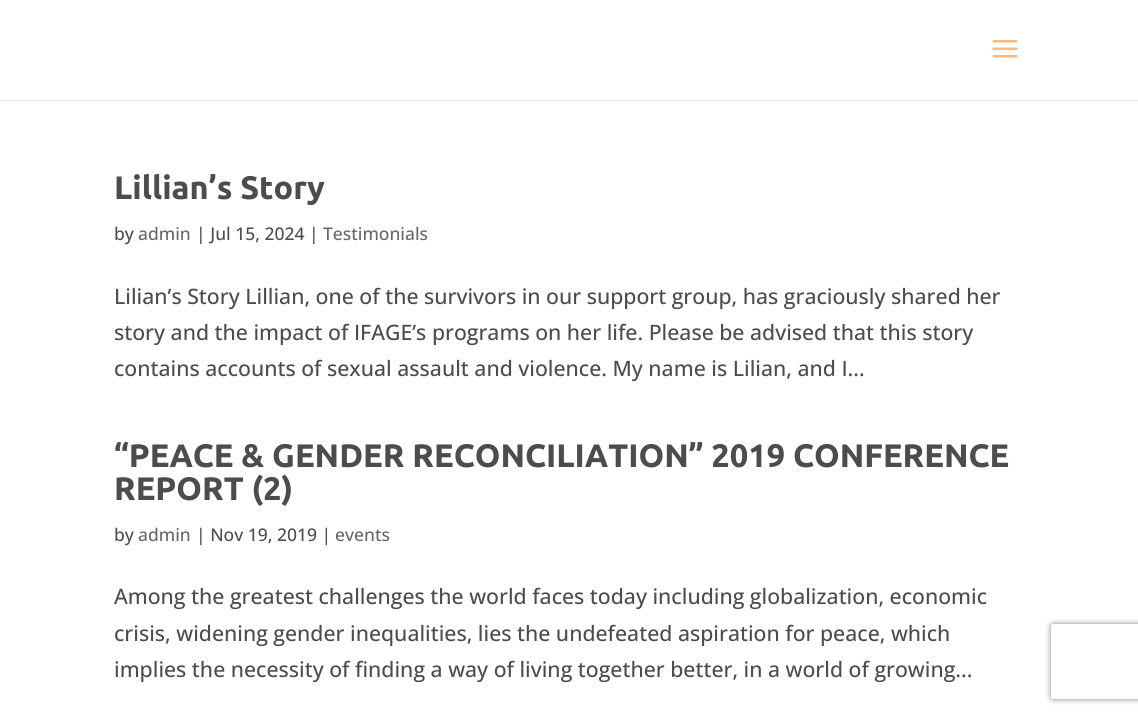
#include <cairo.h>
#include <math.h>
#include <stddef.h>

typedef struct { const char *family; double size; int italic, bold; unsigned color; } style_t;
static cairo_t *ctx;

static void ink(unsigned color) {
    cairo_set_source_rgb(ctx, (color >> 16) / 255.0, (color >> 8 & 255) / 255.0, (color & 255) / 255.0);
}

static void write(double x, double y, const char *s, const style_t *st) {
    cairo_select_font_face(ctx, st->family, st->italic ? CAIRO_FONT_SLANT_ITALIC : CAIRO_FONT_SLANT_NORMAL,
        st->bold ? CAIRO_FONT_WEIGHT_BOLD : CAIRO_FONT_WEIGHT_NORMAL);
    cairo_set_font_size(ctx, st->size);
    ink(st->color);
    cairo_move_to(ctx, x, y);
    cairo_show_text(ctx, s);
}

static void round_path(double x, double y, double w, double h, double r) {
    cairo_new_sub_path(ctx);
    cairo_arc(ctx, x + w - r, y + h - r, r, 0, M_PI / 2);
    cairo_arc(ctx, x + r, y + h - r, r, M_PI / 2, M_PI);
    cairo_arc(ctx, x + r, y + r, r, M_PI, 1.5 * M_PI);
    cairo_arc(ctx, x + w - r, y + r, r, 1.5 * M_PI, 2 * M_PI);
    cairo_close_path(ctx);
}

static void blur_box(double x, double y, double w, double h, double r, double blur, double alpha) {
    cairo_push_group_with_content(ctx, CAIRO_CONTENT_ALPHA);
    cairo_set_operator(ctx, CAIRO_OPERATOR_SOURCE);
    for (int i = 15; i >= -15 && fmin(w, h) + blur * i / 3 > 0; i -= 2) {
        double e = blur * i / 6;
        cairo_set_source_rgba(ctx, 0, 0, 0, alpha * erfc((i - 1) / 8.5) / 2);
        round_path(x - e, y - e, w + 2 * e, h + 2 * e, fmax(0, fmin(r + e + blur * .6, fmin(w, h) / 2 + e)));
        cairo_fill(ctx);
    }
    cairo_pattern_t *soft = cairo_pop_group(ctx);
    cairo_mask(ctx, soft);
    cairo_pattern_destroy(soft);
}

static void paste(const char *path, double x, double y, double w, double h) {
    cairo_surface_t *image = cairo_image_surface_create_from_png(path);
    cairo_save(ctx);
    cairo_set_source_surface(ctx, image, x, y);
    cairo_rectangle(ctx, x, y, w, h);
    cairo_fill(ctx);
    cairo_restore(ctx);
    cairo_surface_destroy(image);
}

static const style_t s1 = {"Ubuntu", 32.5, 0, 1, 0x4c4c4c};
static const style_t s2 = {"Open Sans Medium", 17.5, 0, 0, 0x4c4c4c};
static const style_t s3 = {"Open Sans Medium", 17.5, 0, 0, 0x666666};
static const style_t s4 = {"Open Sans Medium", 21.25, 0, 0, 0x4c4c4c};

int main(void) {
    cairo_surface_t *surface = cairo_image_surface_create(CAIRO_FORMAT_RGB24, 1138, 716);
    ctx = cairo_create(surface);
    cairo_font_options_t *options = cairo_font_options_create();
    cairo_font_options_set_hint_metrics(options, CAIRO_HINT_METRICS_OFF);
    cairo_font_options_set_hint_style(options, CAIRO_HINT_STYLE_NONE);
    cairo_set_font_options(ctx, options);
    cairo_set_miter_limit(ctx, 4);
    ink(0xffffff);
    cairo_paint(ctx);
    ink(0xe6e6e6);
    cairo_new_path(ctx);
    cairo_move_to(ctx, 0, 100);
    cairo_line_to(ctx, 0, 101);
    cairo_line_to(ctx, 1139, 101);
    cairo_line_to(ctx, 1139, 1);
    cairo_line_to(ctx, 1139, 100);
    cairo_close_path(ctx);
    cairo_fill(ctx);
    paste("pic1.png", 992, 40, 26, 18);
    write(114, 199, "Lillian’s Story", &s1);
    write(114, 240, "by", &s2);
    write(138, 240, "admin", &s3);
    write(196, 240, "| Jul 15, 2024 |", &s2);
    write(323, 240, "Testimonials", &s3);
    write(114, 304, "Lilian’s Story Lillian, one of the survivors in our support group, has graciously shared her", &s4);
    write(114, 340, "story and the impact of IFAGE’s programs on her life. Please be advised that this story", &s4);
    write(114, 376, "contains accounts of sexual assault and violence. My name is Lilian, and I...", &s4);
    write(114, 467, "“PEACE & GENDER RECONCILIATION” 2019 CONFERENCE", &s1);
    write(114, 500, "REPORT (2)", &s1);
    write(114, 541, "by", &s2);
    write(138, 541, "admin", &s3);
    write(196, 541, "| Nov 19, 2019 |", &s2);
    write(335, 541, "events", &s3);
    write(114, 604, "Among the greatest challenges the world faces today including globalization, economic", &s4);
    write(114, 641, "crisis, widening gender inequalities, lies the undefeated aspiration for peace, which", &s4);
    write(114, 677, "implies the necessity of finding a way of living together better, in a world of growing...", &s4);
    cairo_save(ctx);
    cairo_set_fill_rule(ctx, CAIRO_FILL_RULE_EVEN_ODD);
    cairo_new_path(ctx);
    cairo_move_to(ctx, 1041, 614);
    cairo_line_to(ctx, 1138, 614);
    cairo_line_to(ctx, 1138, 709);
    cairo_line_to(ctx, 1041, 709);
    cairo_close_path(ctx);
    cairo_move_to(ctx, 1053.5, 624);
    cairo_line_to(ctx, 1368.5, 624);
    cairo_curve_to(ctx, 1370, 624, 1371, 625, 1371, 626.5);
    cairo_line_to(ctx, 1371, 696.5);
    cairo_curve_to(ctx, 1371, 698, 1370, 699, 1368.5, 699);
    cairo_line_to(ctx, 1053.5, 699);
    cairo_curve_to(ctx, 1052, 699, 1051, 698, 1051, 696.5);
    cairo_line_to(ctx, 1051, 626.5);
    cairo_curve_to(ctx, 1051, 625, 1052, 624, 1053.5, 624);
    cairo_close_path(ctx);
    cairo_clip(ctx);
    ink(0x808080);
    blur_box(1051, 624, 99, 75, 2.5, 3, 1);
    cairo_restore(ctx);
    cairo_surface_write_to_png(surface, "screenshot.png");
    cairo_font_options_destroy(options);
    cairo_destroy(ctx);
    cairo_surface_destroy(surface);
    return 0;
}
